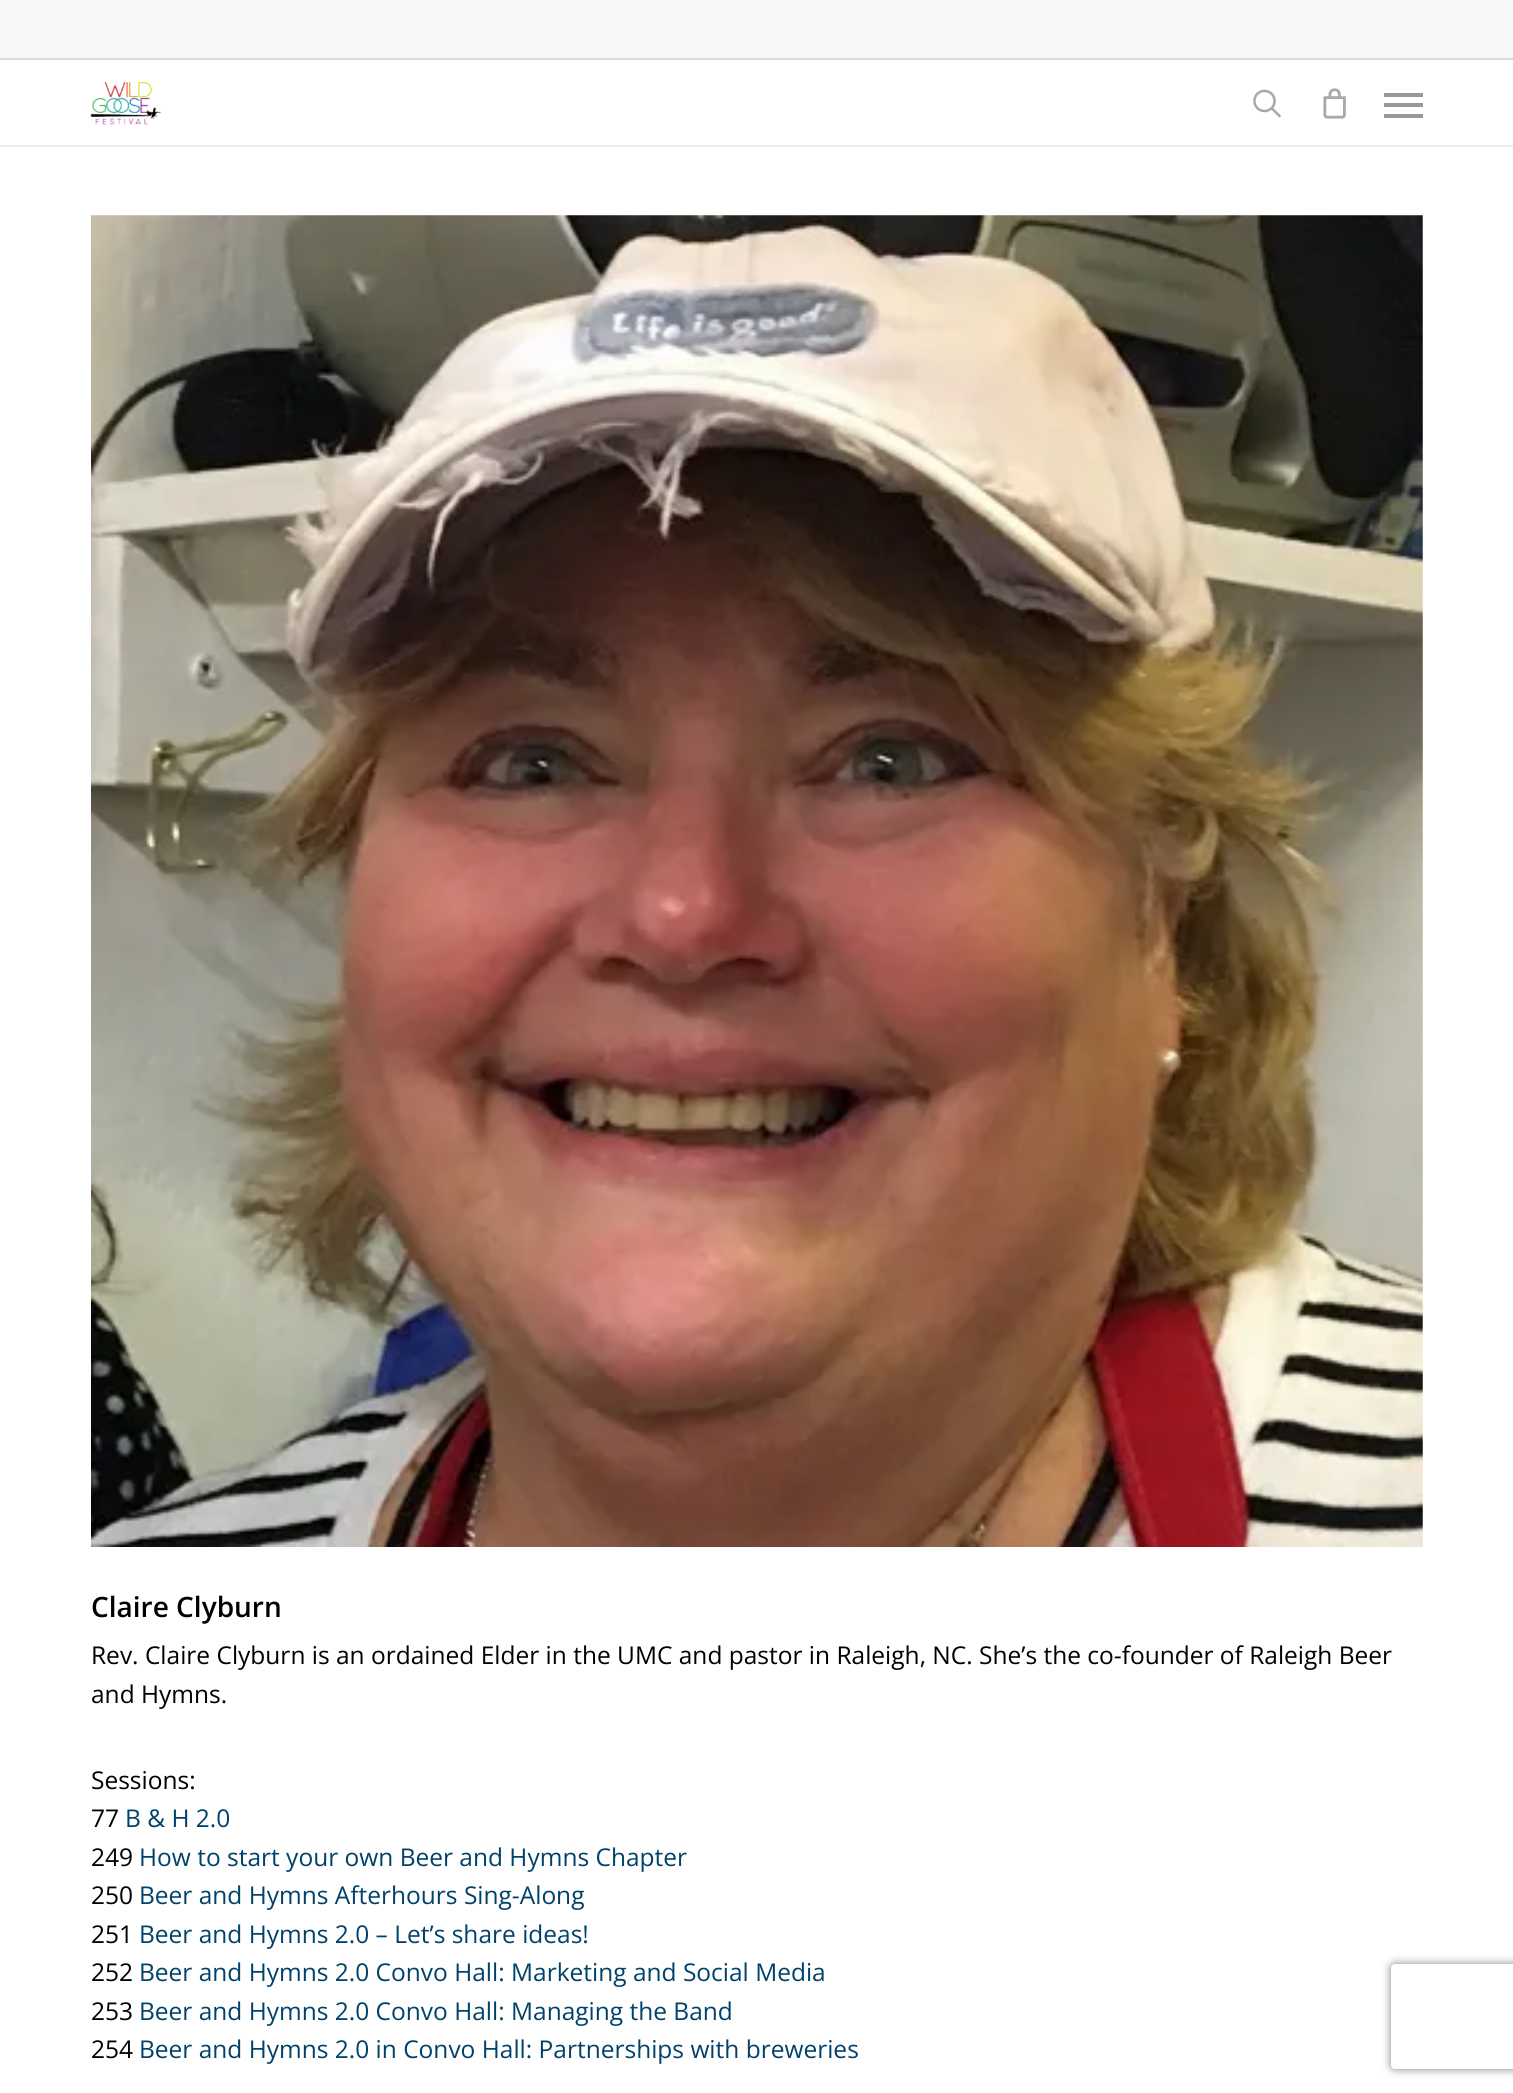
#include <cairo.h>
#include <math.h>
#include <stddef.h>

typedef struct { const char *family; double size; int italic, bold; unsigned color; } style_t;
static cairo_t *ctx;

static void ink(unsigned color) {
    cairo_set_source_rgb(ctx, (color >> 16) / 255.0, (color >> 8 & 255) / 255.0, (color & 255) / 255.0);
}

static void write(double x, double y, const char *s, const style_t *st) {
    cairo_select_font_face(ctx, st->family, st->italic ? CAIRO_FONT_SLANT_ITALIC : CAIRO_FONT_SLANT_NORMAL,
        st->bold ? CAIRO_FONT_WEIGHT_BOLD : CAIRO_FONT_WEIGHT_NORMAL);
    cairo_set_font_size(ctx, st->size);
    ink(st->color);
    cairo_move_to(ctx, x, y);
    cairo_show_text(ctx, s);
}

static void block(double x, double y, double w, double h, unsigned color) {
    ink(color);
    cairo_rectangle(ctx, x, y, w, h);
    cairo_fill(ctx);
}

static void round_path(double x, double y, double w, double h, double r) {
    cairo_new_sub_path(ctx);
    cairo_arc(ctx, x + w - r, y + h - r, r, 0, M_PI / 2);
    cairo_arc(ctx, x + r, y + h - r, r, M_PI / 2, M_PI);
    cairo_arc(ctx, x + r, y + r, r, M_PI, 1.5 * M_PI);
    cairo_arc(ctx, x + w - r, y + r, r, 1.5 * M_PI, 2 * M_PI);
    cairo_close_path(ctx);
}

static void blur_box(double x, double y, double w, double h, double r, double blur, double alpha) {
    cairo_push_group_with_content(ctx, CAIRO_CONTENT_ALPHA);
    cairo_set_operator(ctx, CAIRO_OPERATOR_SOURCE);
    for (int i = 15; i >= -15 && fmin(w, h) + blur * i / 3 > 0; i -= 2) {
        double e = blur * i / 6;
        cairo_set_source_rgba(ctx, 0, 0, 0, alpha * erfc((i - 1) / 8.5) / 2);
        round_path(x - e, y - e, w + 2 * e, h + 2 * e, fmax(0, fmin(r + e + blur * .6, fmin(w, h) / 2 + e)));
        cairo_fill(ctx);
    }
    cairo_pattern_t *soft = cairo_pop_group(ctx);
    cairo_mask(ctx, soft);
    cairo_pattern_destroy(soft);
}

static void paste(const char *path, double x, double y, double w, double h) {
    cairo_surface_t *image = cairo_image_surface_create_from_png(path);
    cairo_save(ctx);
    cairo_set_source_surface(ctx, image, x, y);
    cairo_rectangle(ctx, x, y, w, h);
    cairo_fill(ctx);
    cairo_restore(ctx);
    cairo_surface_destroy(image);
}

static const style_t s1 = {"Open Sans SemiBold", 28, 0, 0, 0x000000};
static const style_t s2 = {"Open Sans", 24.5, 0, 0, 0x000000};
static const style_t s3 = {"Open Sans", 24.5, 0, 0, 0x01426a};

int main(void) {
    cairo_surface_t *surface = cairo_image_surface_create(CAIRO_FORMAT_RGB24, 1513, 2093);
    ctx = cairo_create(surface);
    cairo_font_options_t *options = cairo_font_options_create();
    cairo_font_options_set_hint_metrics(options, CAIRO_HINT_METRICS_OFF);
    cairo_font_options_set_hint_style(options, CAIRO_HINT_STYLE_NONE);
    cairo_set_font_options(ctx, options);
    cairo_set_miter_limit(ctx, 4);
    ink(0xffffff);
    cairo_paint(ctx);
    cairo_save(ctx);
    cairo_rectangle(ctx, 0, 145, 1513, 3);
    cairo_clip(ctx);
    ink(0x000000);
    blur_box(0, 0, 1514, 145, 0, 2.5, 0.22);
    cairo_restore(ctx);
    block(0, 0, 1513, 58, 0xf8f8f8);
    block(0, 58, 1513, 2, 0xdddddd);
    paste("pic1.png", 90, 82, 71, 43);
    paste("pic2.png", 1253, 89, 28, 29);
    paste("pic3.png", 1323, 88, 23, 31);
    block(1384, 93, 39, 4, 0x999999);
    block(1384, 114, 39, 4, 0x999999);
    block(1384, 103, 39, 4, 0x999999);
    paste("pic4.png", 91, 215, 1332, 1332);
    write(91, 1617, "Claire Clyburn", &s1);
    write(91, 1664, "Rev. Claire Clyburn is an ordained Elder in the UMC and pastor in Raleigh, NC. She’s the co-founder of Raleigh Beer", &s2);
    write(91, 1703, "and Hymns.", &s2);
    write(91, 1789, "Sessions:", &s2);
    write(91, 1827, "77", &s2);
    write(125, 1827, "B & H 2.0", &s3);
    write(91, 1866, "249", &s2);
    write(139, 1866, "How to start your own Beer and Hymns Chapter", &s3);
    write(91, 1904, "250", &s2);
    write(139, 1904, "Beer and Hymns Afterhours Sing-Along", &s3);
    write(91, 1943, "251", &s2);
    write(139, 1943, "Beer and Hymns 2.0 – Let’s share ideas!", &s3);
    write(91, 1981, "252", &s2);
    write(139, 1981, "Beer and Hymns 2.0 Convo Hall: Marketing and Social Media", &s3);
    write(91, 2020, "253", &s2);
    write(139, 2020, "Beer and Hymns 2.0 Convo Hall: Managing the Band", &s3);
    write(91, 2058, "254", &s2);
    write(139, 2058, "Beer and Hymns 2.0 in Convo Hall: Partnerships with breweries", &s3);
    cairo_save(ctx);
    cairo_set_fill_rule(ctx, CAIRO_FILL_RULE_EVEN_ODD);
    cairo_new_path(ctx);
    cairo_move_to(ctx, 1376, 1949);
    cairo_line_to(ctx, 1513, 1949);
    cairo_line_to(ctx, 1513, 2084);
    cairo_line_to(ctx, 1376, 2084);
    cairo_close_path(ctx);
    cairo_move_to(ctx, 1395, 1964);
    cairo_line_to(ctx, 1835, 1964);
    cairo_curve_to(ctx, 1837, 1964, 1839, 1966, 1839, 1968);
    cairo_line_to(ctx, 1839, 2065);
    cairo_curve_to(ctx, 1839, 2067, 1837, 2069, 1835, 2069);
    cairo_line_to(ctx, 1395, 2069);
    cairo_curve_to(ctx, 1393, 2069, 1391, 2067, 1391, 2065);
    cairo_line_to(ctx, 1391, 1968);
    cairo_curve_to(ctx, 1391, 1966, 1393, 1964, 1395, 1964);
    cairo_close_path(ctx);
    cairo_clip(ctx);
    ink(0x808080);
    blur_box(1391, 1964, 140, 105, 4, 4.5, 1);
    cairo_restore(ctx);
    cairo_surface_write_to_png(surface, "screenshot.png");
    cairo_font_options_destroy(options);
    cairo_destroy(ctx);
    cairo_surface_destroy(surface);
    return 0;
}
